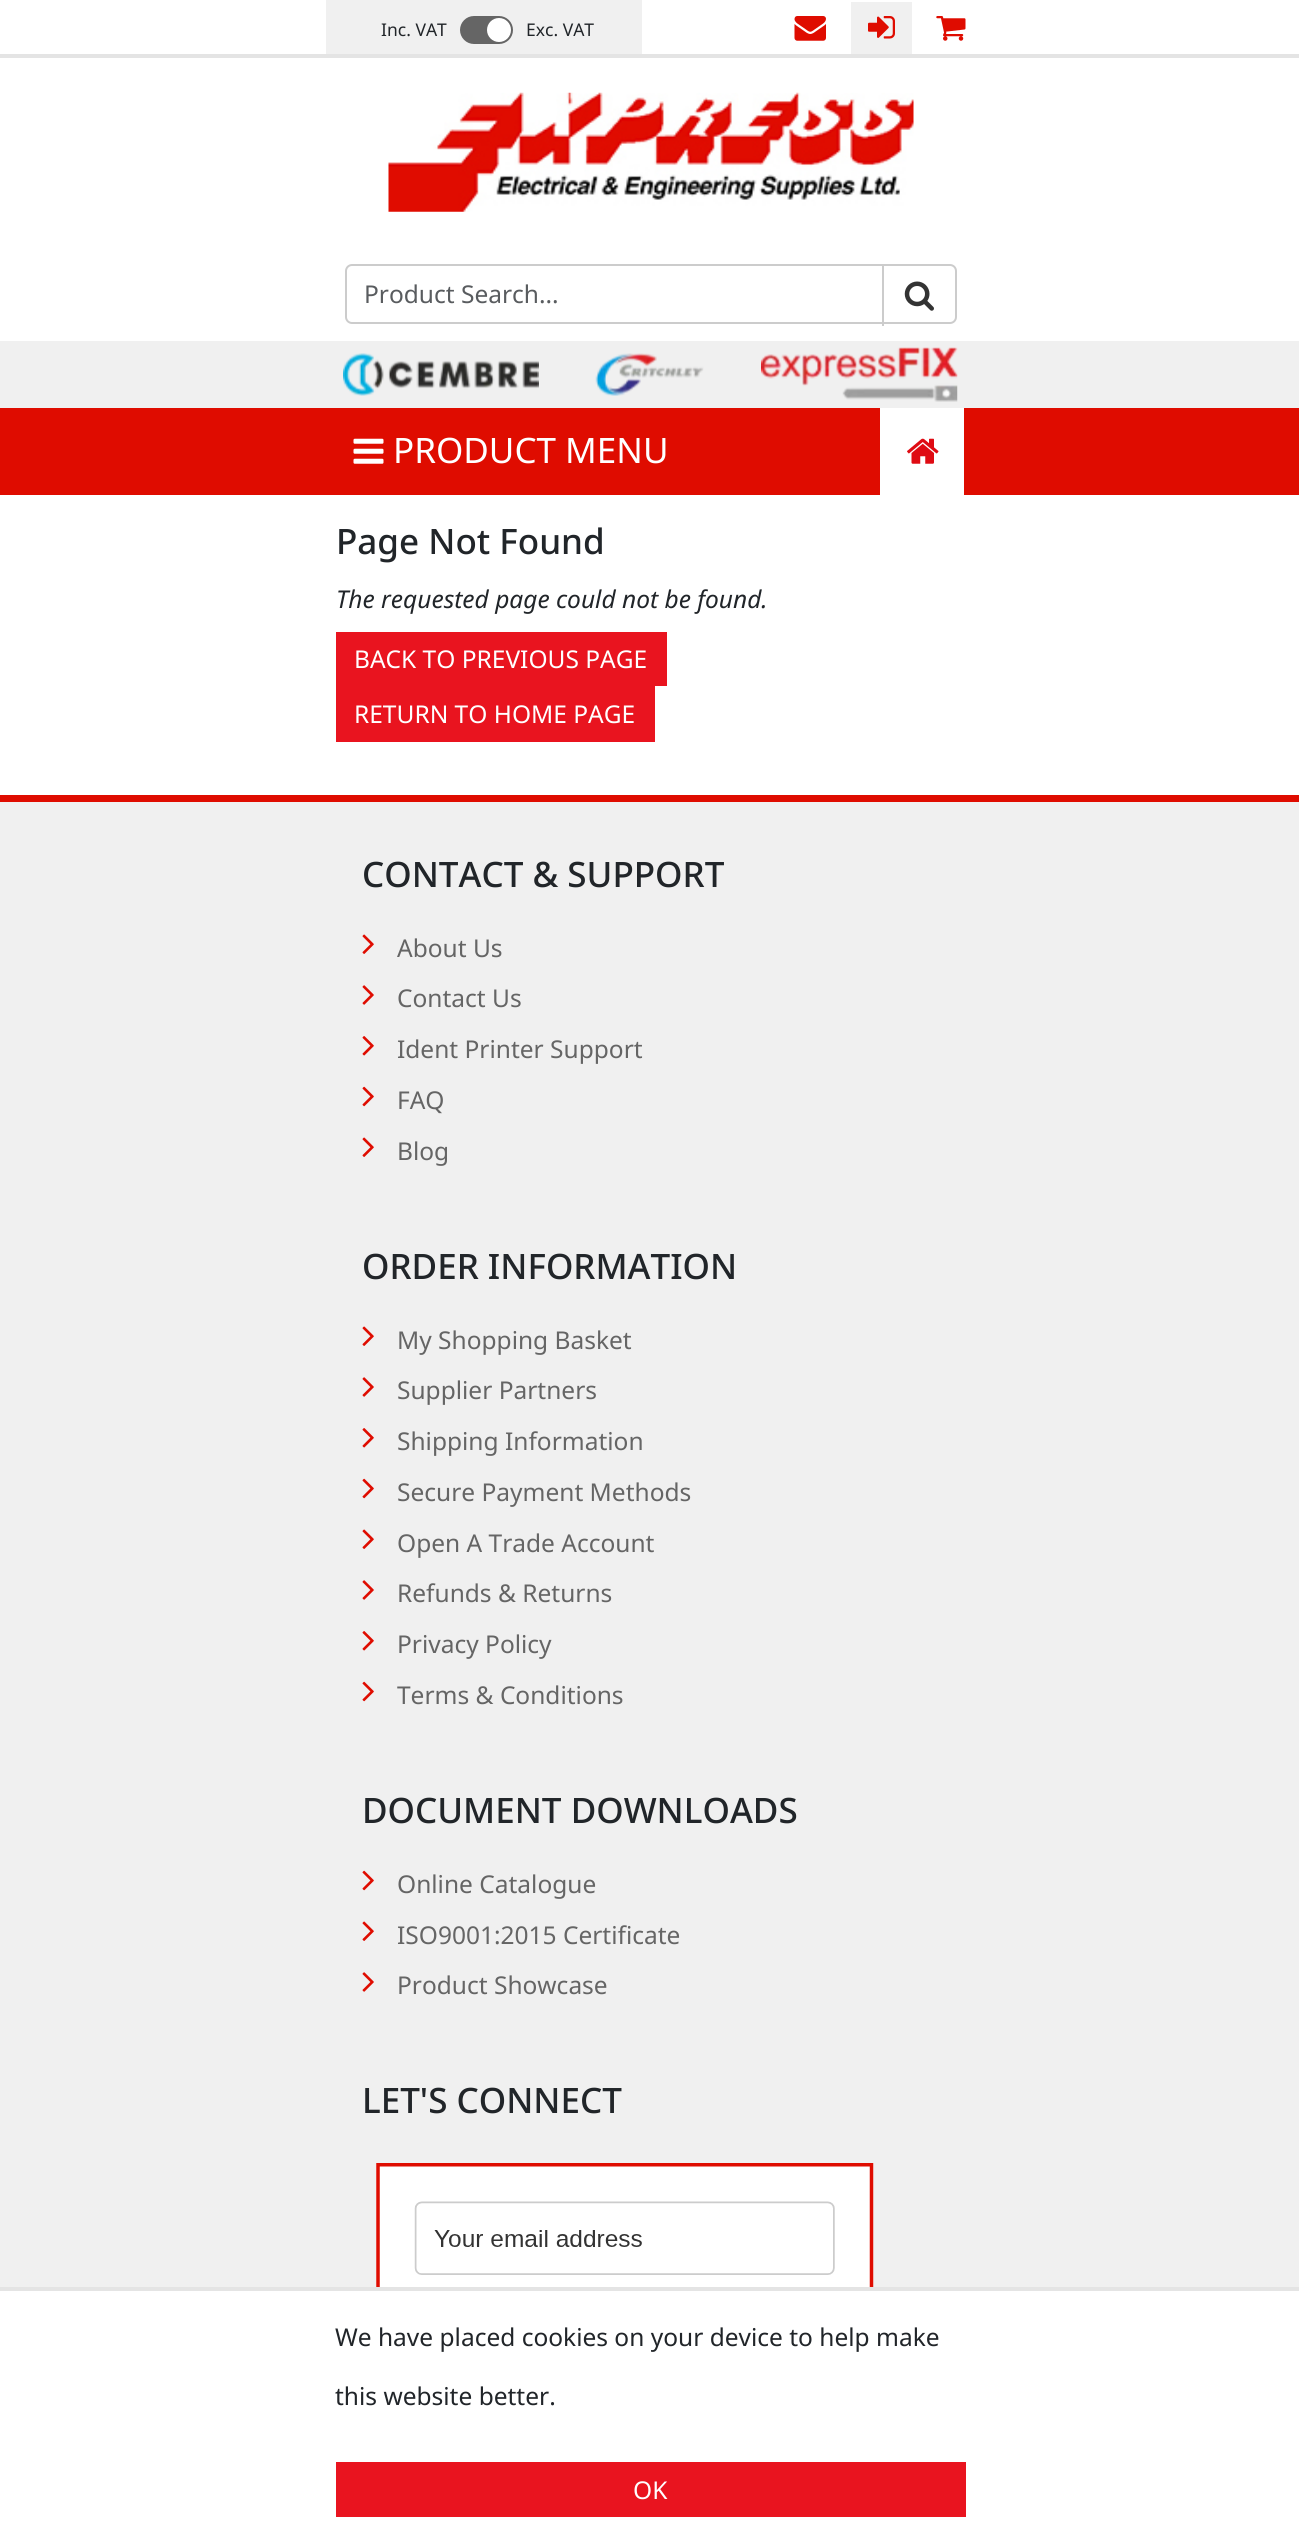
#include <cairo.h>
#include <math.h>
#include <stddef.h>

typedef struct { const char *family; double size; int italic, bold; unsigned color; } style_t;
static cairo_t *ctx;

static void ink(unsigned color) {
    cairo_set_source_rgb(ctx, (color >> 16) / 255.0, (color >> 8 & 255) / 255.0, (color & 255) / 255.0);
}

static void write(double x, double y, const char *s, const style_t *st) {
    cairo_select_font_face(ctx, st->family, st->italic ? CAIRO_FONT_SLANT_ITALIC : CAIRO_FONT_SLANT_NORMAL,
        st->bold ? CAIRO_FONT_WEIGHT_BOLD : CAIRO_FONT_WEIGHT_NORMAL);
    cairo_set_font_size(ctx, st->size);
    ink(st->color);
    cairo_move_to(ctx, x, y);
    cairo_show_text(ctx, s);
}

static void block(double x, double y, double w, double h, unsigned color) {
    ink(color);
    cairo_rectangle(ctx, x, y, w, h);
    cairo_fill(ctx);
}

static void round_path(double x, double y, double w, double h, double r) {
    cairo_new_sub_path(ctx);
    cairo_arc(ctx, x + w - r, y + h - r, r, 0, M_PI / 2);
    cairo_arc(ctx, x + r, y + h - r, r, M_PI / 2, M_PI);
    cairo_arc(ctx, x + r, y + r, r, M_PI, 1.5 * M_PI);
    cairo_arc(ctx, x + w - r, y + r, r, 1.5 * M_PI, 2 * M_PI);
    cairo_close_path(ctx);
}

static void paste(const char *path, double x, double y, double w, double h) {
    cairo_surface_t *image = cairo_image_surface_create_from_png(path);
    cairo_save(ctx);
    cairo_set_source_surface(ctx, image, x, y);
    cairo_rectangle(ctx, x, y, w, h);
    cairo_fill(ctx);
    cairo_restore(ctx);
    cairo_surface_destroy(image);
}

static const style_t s1 = {"Noto Sans", 17.5, 0, 0, 0x212529};
static const style_t s2 = {"Noto Sans", 24.5, 0, 0, 0x595c5f};
static const style_t s3 = {"Noto Sans", 35, 0, 0, 0xffffff};
static const style_t s4 = {"Noto Sans Medium", 35, 0, 0, 0x212529};
static const style_t s5 = {"Noto Sans", 24.5, 1, 0, 0x212529};
static const style_t s6 = {"Noto Sans", 24.5, 0, 0, 0xffffff};
static const style_t s7 = {"Noto Sans", 24.5, 0, 0, 0x656565};
static const style_t s8 = {"Noto Sans", 24.5, 0, 0, 0x212529};

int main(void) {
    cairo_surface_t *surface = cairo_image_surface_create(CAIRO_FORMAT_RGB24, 1299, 2533);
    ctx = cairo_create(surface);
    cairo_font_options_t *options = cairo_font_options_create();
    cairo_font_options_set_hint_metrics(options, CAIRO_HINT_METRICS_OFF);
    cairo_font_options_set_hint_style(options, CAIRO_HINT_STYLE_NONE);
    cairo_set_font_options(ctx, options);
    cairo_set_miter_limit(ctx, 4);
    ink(0xffffff);
    cairo_paint(ctx);
    block(0, 54, 1299, 4, 0xe4e4e4);
    block(326, 0, 316, 54, 0xf0f0f0);
    write(381, 36, "Inc. VAT", &s1);
    ink(0x656565);
    round_path(460, 16, 53, 28, 14);
    cairo_fill(ctx);
    ink(0xffffff);
    cairo_arc(ctx, 499, 30, 12, 0, 2 * M_PI);
    cairo_fill(ctx);
    write(526, 36, "Exc. VAT", &s1);
    paste("pic1.png", 794, 16, 32, 25);
    block(851, 2, 61, 52, 0xf0f0f0);
    paste("pic2.png", 868, 16, 27, 23);
    paste("pic3.png", 936, 16, 30, 25);
    paste("pic4.png", 388, 92, 526, 120);
    round_path(346, 265, 610, 58, 6);
    ink(0xcccccc);
    cairo_stroke(ctx);
    write(364, 303, "Product Search...", &s2);
    block(882, 266, 2, 60, 0xcccccc);
    paste("pic5.png", 904, 281, 30, 30);
    block(0, 341, 1299, 67, 0xf0f0f0);
    paste("pic6.png", 343, 353, 196, 43);
    paste("pic7.png", 595, 353, 109, 43);
    paste("pic8.png", 761, 347, 197, 55);
    block(0, 408, 1299, 87, 0xdf0c00);
    paste("pic9.png", 353, 438, 31, 26);
    write(393, 463, "PRODUCT MENU", &s3);
    block(880, 408, 84, 87, 0xffffff);
    paste("pic10.png", 907, 438, 32, 26);
    write(336, 554, "Page Not Found", &s4);
    write(336, 608, "The requested page could not be found.", &s5);
    block(336, 632, 331, 54, 0xe9141f);
    write(354, 668, "BACK TO PREVIOUS PAGE", &s6);
    block(336, 686, 319, 56, 0xe9141f);
    write(354, 723, "RETURN TO HOME PAGE", &s6);
    block(0, 802, 1299, 1485, 0xf0f0f0);
    block(0, 795, 1299, 7, 0xdf0c00);
    write(362, 887, "CONTACT & SUPPORT", &s4);
    paste("pic11.png", 362, 934, 12, 20);
    write(397, 957, "About Us", &s7);
    paste("pic12.png", 362, 985, 12, 20);
    write(397, 1007, "Contact Us", &s7);
    paste("pic13.png", 362, 1036, 12, 20);
    write(397, 1058, "Ident Printer Support", &s7);
    paste("pic14.png", 362, 1086, 12, 21);
    write(397, 1109, "FAQ", &s7);
    paste("pic11.png", 362, 1137, 12, 20);
    write(397, 1160, "Blog", &s7);
    write(362, 1279, "ORDER INFORMATION", &s4);
    paste("pic11.png", 362, 1326, 12, 20);
    write(397, 1349, "My Shopping Basket", &s7);
    paste("pic12.png", 362, 1377, 12, 20);
    write(397, 1399, "Supplier Partners", &s7);
    paste("pic13.png", 362, 1428, 12, 20);
    write(397, 1450, "Shipping Information", &s7);
    paste("pic14.png", 362, 1478, 12, 21);
    write(397, 1501, "Secure Payment Methods", &s7);
    paste("pic11.png", 362, 1529, 12, 20);
    write(397, 1552, "Open A Trade Account", &s7);
    paste("pic12.png", 362, 1580, 12, 20);
    write(397, 1602, "Refunds & Returns", &s7);
    paste("pic13.png", 362, 1631, 12, 20);
    write(397, 1653, "Privacy Policy", &s7);
    paste("pic14.png", 362, 1681, 12, 21);
    write(397, 1704, "Terms & Conditions", &s7);
    write(362, 1823, "DOCUMENT DOWNLOADS", &s4);
    paste("pic14.png", 362, 1870, 12, 21);
    write(397, 1893, "Online Catalogue", &s7);
    paste("pic11.png", 362, 1921, 12, 20);
    write(397, 1944, "ISO9001:2015 Certificate", &s7);
    paste("pic12.png", 362, 1972, 12, 20);
    write(397, 1994, "Product Showcase", &s7);
    write(362, 2113, "LET'S CONNECT", &s4);
    paste("pic15.png", 376, 2163, 498, 124);
    block(0, 2287, 1299, 4, 0xe4e4e4);
    write(335, 2346, "We have placed cookies on your device to help make", &s8);
    write(335, 2405, "this website better.", &s8);
    block(336, 2462, 630, 55, 0xe9141f);
    write(633, 2499, "OK", &s6);
    cairo_surface_write_to_png(surface, "screenshot.png");
    cairo_font_options_destroy(options);
    cairo_destroy(ctx);
    cairo_surface_destroy(surface);
    return 0;
}
